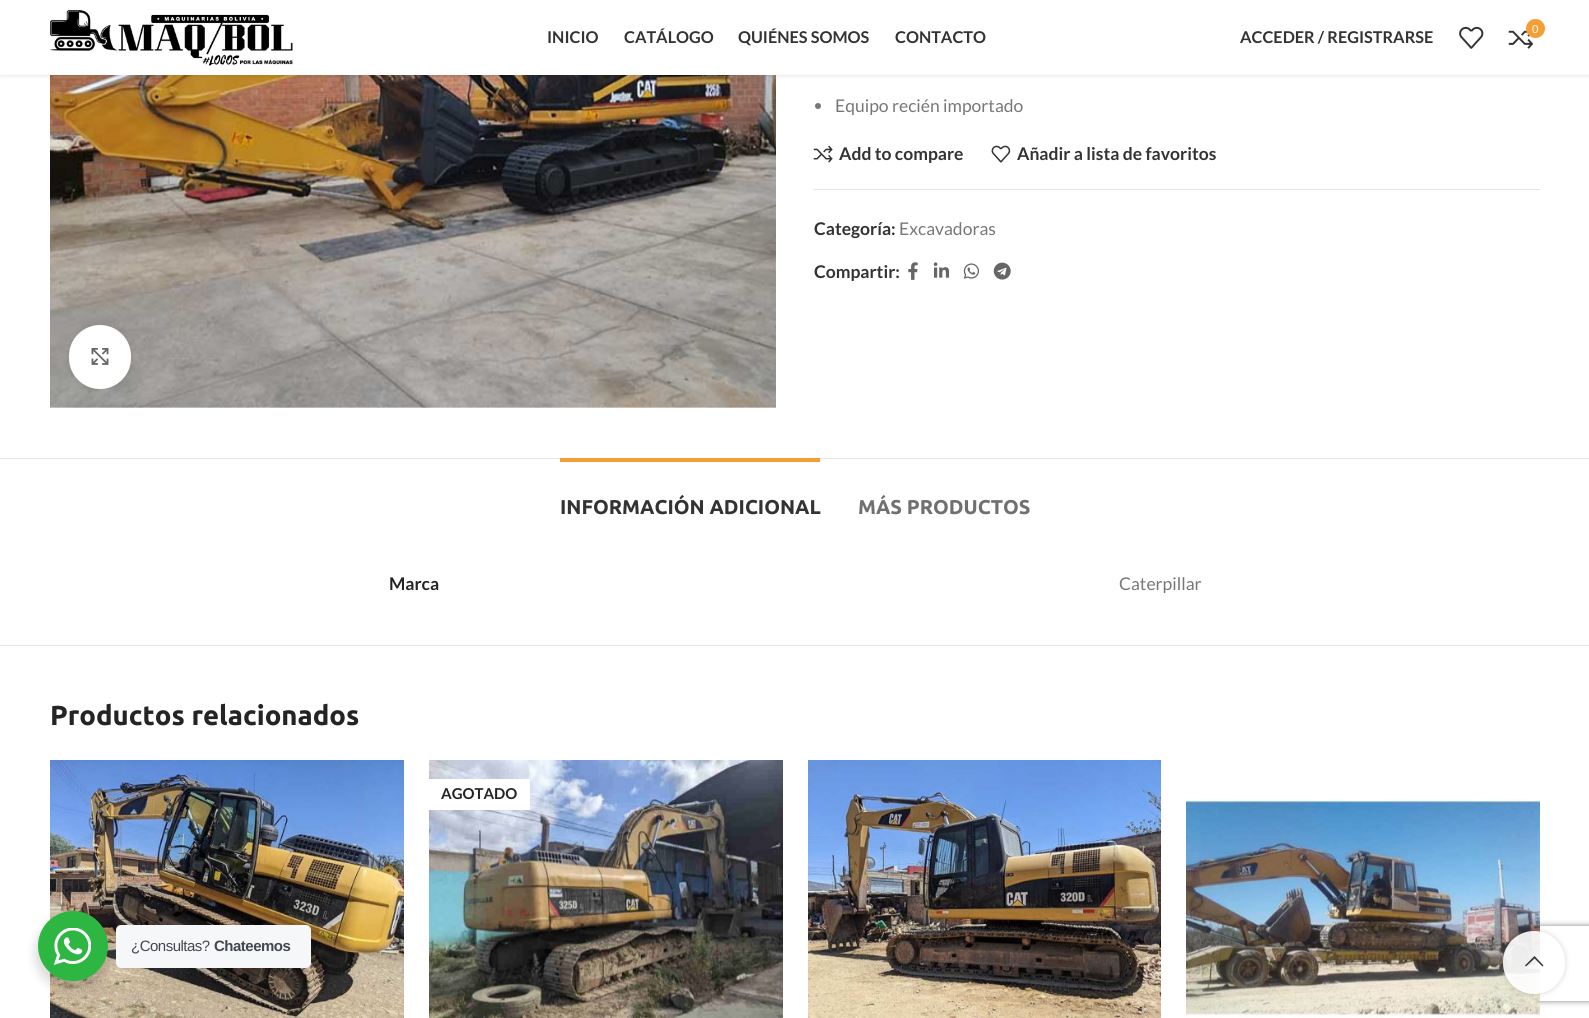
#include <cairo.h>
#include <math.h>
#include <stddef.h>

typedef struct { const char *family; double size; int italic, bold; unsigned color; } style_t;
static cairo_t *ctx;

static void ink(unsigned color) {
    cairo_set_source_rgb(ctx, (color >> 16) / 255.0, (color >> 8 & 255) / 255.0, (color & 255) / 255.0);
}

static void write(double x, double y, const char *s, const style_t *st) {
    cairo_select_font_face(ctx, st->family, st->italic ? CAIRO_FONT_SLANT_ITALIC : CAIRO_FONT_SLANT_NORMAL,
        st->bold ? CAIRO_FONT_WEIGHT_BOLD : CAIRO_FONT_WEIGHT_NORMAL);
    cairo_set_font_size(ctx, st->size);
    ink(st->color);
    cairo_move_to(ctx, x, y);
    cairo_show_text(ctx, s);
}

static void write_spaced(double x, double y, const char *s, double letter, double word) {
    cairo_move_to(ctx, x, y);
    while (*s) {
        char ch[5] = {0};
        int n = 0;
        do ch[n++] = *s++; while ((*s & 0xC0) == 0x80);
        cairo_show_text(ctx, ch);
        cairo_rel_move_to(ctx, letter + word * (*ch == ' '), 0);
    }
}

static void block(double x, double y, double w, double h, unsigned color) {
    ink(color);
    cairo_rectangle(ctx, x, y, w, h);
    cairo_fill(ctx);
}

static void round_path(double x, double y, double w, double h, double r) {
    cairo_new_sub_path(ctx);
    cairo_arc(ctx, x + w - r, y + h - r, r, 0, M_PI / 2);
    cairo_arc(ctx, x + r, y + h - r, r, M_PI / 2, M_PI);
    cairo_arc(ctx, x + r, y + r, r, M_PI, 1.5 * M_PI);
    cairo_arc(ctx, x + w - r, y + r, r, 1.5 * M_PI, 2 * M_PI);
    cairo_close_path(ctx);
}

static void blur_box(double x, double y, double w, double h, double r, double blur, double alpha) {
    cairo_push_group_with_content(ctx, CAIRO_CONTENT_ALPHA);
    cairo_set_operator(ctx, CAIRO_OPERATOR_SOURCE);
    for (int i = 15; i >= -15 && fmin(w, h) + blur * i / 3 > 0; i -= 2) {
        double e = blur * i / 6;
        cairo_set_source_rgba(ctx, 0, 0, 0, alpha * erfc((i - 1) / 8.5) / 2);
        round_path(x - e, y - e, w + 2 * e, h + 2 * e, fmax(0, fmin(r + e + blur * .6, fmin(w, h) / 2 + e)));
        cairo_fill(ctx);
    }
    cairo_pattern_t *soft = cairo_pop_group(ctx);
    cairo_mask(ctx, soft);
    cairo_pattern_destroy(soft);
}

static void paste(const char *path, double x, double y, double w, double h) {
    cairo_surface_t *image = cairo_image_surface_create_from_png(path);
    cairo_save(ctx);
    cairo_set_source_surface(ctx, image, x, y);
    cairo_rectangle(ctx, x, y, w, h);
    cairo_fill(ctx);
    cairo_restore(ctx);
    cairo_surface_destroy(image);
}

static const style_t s1 = {"Lato", 16.25, 0, 1, 0x333333};
static const style_t s2 = {"Lato", 11, 0, 0, 0xffffff};
static const style_t s3 = {"Lato", 17.5, 0, 0, 0x777777};
static const style_t s4 = {"Lato", 17.5, 0, 1, 0x333333};
static const style_t s5 = {"Ubuntu", 20, 0, 1, 0x333333};
static const style_t s6 = {"Ubuntu", 20, 0, 1, 0x707070};
static const style_t s7 = {"Lato", 17.5, 0, 1, 0x242424};
static const style_t s8 = {"Ubuntu", 27.5, 0, 1, 0x242424};
static const style_t s9 = {"Lato", 15, 0, 1, 0x242424};

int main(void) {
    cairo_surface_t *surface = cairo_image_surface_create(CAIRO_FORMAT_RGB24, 1589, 1018);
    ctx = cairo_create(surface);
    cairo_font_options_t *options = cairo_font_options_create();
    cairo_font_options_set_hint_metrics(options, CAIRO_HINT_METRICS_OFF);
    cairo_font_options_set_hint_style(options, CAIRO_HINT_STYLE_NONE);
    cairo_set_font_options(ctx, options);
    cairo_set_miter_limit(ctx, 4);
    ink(0xffffff);
    cairo_paint(ctx);
    paste("pic4.png", 50, 75, 726, 333);
    ink(0x000000);
    blur_box(0, 1, 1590, 75, 0, 2, 0.1);
    block(0, 0, 1589, 75, 0xffffff);
    paste("pic1.png", 50, 10, 243, 56);
    write(547, 43, "INICIO", &s1);
    write(624, 43, "CATÁLOGO", &s1);
    write(738, 43, "QUIÉNES SOMOS", &s1);
    write(895, 43, "CONTACTO", &s1);
    write(1240, 43, "ACCEDER / REGISTRARSE", &s1);
    paste("pic2.png", 1459, 26, 25, 23);
    paste("pic3.png", 1508, 30, 26, 19);
    ink(0xf59e36);
    cairo_arc(ctx, 1535.5, 28.5, 9.5, 0, 2 * M_PI);
    cairo_fill(ctx);
    write(1532, 33, "0", &s2);
    ink(0x000000);
    blur_box(69, 325, 62, 64, 31, 3, 0.08);
    ink(0xffffff);
    round_path(69, 325, 62, 64, 31);
    cairo_fill(ctx);
    paste("pic5.png", 91, 348, 18, 17);
    ink(0x777777);
    cairo_arc(ctx, 818, 106, 3, 0, 2 * M_PI);
    cairo_fill(ctx);
    write(835, 112, "Equipo recién importado", &s3);
    paste("pic6.png", 813, 145, 20, 18);
    write(839, 160, "Add to compare", &s4);
    paste("pic7.png", 991, 145, 20, 18);
    write(1017, 160, "Añadir a lista de favoritos", &s4);
    block(814, 189, 726, 1, 0xe4e4e4);
    write(814, 235, "Categoría:", &s4);
    write(899, 235, "Excavadoras", &s3);
    write(814, 278, "Compartir:", &s4);
    paste("pic8.png", 908, 262, 10, 18);
    paste("pic9.png", 933, 262, 17, 16);
    paste("pic10.png", 963, 263, 16, 16);
    paste("pic11.png", 993, 262, 18, 18);
    block(0, 458, 1589, 1, 0xe4e4e4);
    block(0, 645, 1589, 1, 0xe4e4e4);
    block(560, 458, 260, 4, 0xf59e36);
    write(560, 514, "INFORMACIÓN ADICIONAL", &s5);
    write(858, 514, "MÁS PRODUCTOS", &s6);
    write(389, 590, "Marca", &s7);
    write(1119, 590, "Caterpillar", &s3);
    write(50, 725, "Productos relacionados", &s8);
    paste("pic12.png", 50, 760, 354, 258);
    paste("pic13.png", 429, 760, 354, 258);
    block(429, 779, 101, 31, 0xffffff);
    write(441, 799, "AGOTADO", &s9);
    paste("pic14.png", 808, 760, 353, 258);
    cairo_save(ctx);
    cairo_set_fill_rule(ctx, CAIRO_FILL_RULE_EVEN_ODD);
    cairo_new_path(ctx);
    cairo_move_to(ctx, 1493, 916);
    cairo_line_to(ctx, 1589, 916);
    cairo_line_to(ctx, 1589, 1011);
    cairo_line_to(ctx, 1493, 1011);
    cairo_close_path(ctx);
    cairo_move_to(ctx, 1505.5, 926);
    cairo_line_to(ctx, 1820.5, 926);
    cairo_curve_to(ctx, 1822, 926, 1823, 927, 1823, 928.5);
    cairo_line_to(ctx, 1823, 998.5);
    cairo_curve_to(ctx, 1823, 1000, 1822, 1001, 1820.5, 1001);
    cairo_line_to(ctx, 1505.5, 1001);
    cairo_curve_to(ctx, 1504, 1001, 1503, 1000, 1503, 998.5);
    cairo_line_to(ctx, 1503, 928.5);
    cairo_curve_to(ctx, 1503, 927, 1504, 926, 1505.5, 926);
    cairo_close_path(ctx);
    cairo_clip(ctx);
    ink(0x808080);
    blur_box(1503, 926, 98, 75, 2.5, 3, 1);
    cairo_restore(ctx);
    paste("pic15.png", 1186, 799, 354, 219);
    ink(0x000000);
    blur_box(35, 916, 75, 75, 37.5, 5, 0.14);
    ink(0x2db742);
    cairo_arc(ctx, 73, 946, 35, 0, 2 * M_PI);
    cairo_fill(ctx);
    paste("pic16.png", 54, 928, 37, 37);
    ink(0xf5f7f9);
    round_path(116, 925, 195, 43, 5);
    cairo_fill(ctx);
    cairo_select_font_face(ctx, "Liberation Sans", CAIRO_FONT_SLANT_NORMAL, CAIRO_FONT_WEIGHT_NORMAL);
    ink(0x43474e);
    write_spaced(131, 951, "¿Consultas?", -0.5, 0);
    cairo_select_font_face(ctx, "Liberation Sans", CAIRO_FONT_SLANT_NORMAL, CAIRO_FONT_WEIGHT_BOLD);
    write_spaced(214, 951, "Chateemos", -0.5, 0);
    cairo_save(ctx);
    cairo_set_fill_rule(ctx, CAIRO_FILL_RULE_EVEN_ODD);
    cairo_new_path(ctx);
    cairo_move_to(ctx, 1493, 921);
    cairo_line_to(ctx, 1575, 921);
    cairo_line_to(ctx, 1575, 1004);
    cairo_line_to(ctx, 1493, 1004);
    cairo_close_path(ctx);
    cairo_move_to(ctx, 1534, 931);
    cairo_curve_to(ctx, 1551, 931, 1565, 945, 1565, 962);
    cairo_line_to(ctx, 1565, 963);
    cairo_curve_to(ctx, 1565, 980, 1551, 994, 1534, 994);
    cairo_curve_to(ctx, 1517, 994, 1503, 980, 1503, 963);
    cairo_line_to(ctx, 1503, 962);
    cairo_curve_to(ctx, 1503, 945, 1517, 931, 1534, 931);
    cairo_close_path(ctx);
    cairo_clip(ctx);
    ink(0x000000);
    blur_box(1503, 931, 62, 63, 31, 3, 0.17);
    cairo_restore(ctx);
    cairo_set_source_rgba(ctx, 1, 1, 1, 0.9);
    round_path(1503, 931, 62, 63, 31);
    cairo_fill(ctx);
    ink(0x333333);
    cairo_new_path(ctx);
    cairo_move_to(ctx, 1542.5, 966.5);
    cairo_line_to(ctx, 1543.5, 965.5);
    cairo_line_to(ctx, 1534.5, 956);
    cairo_line_to(ctx, 1525, 965.5);
    cairo_line_to(ctx, 1526, 966.5);
    cairo_line_to(ctx, 1534.5, 958.5);
    cairo_close_path(ctx);
    cairo_fill(ctx);
    cairo_surface_write_to_png(surface, "screenshot.png");
    cairo_font_options_destroy(options);
    cairo_destroy(ctx);
    cairo_surface_destroy(surface);
    return 0;
}
